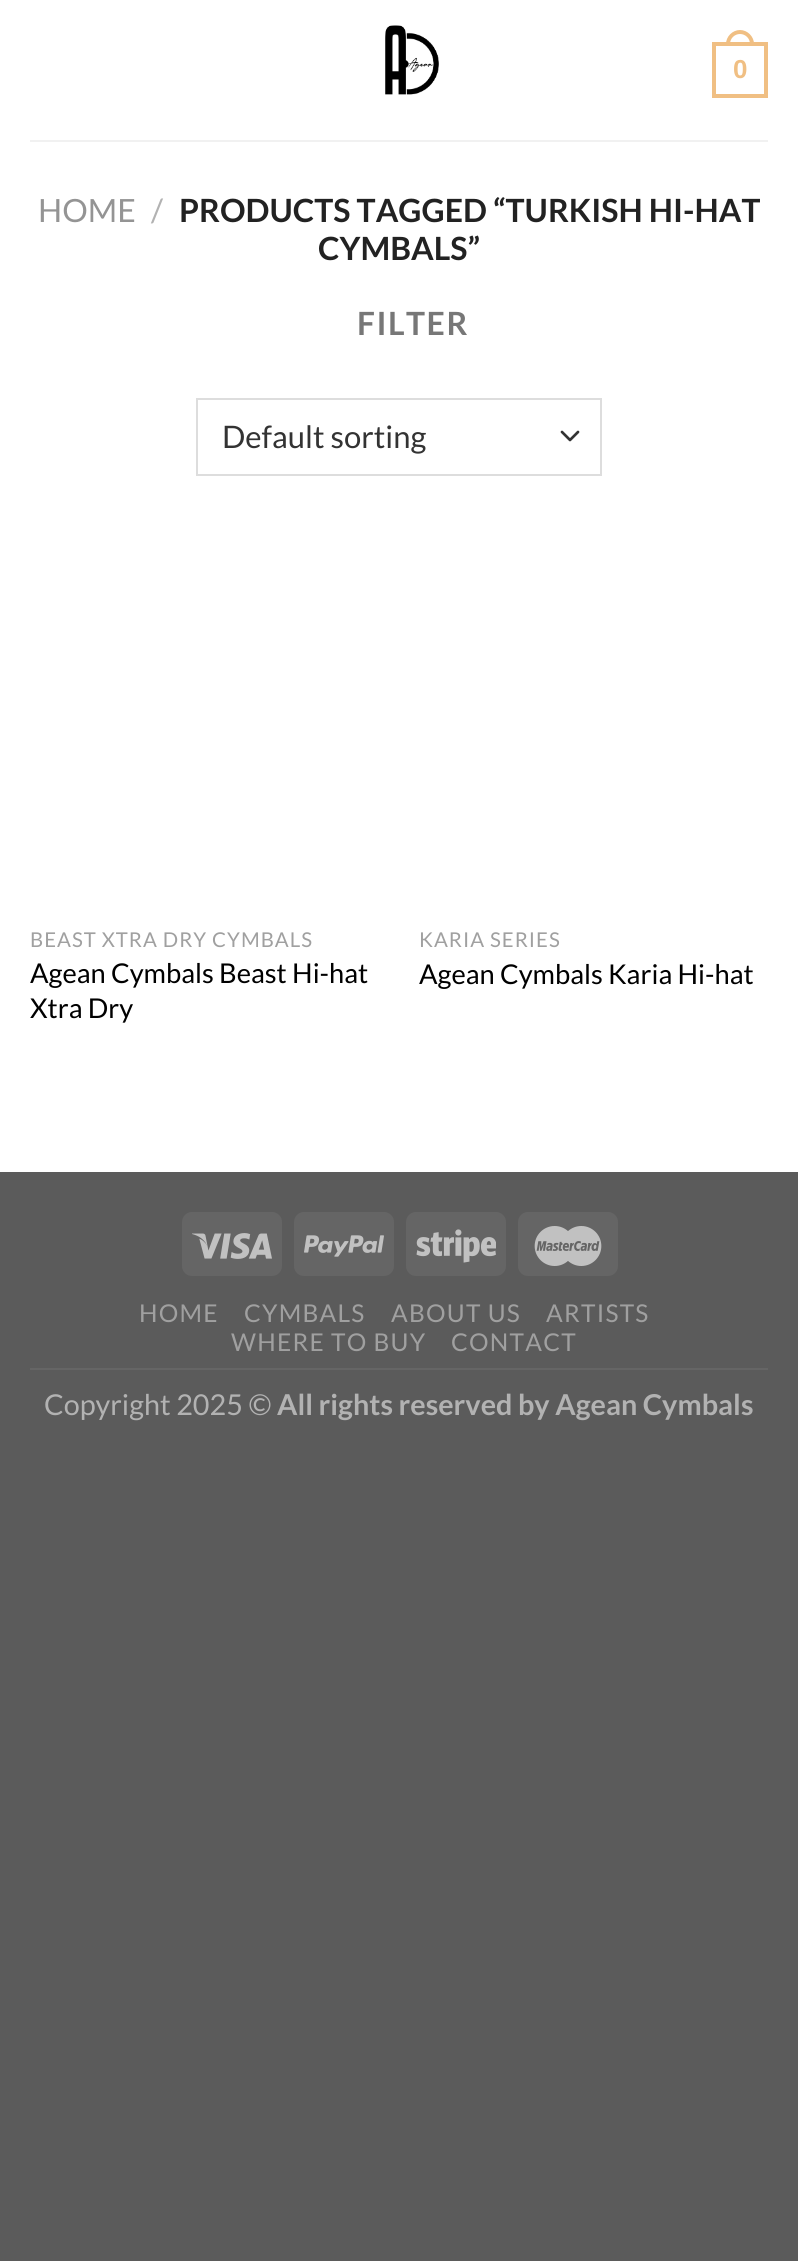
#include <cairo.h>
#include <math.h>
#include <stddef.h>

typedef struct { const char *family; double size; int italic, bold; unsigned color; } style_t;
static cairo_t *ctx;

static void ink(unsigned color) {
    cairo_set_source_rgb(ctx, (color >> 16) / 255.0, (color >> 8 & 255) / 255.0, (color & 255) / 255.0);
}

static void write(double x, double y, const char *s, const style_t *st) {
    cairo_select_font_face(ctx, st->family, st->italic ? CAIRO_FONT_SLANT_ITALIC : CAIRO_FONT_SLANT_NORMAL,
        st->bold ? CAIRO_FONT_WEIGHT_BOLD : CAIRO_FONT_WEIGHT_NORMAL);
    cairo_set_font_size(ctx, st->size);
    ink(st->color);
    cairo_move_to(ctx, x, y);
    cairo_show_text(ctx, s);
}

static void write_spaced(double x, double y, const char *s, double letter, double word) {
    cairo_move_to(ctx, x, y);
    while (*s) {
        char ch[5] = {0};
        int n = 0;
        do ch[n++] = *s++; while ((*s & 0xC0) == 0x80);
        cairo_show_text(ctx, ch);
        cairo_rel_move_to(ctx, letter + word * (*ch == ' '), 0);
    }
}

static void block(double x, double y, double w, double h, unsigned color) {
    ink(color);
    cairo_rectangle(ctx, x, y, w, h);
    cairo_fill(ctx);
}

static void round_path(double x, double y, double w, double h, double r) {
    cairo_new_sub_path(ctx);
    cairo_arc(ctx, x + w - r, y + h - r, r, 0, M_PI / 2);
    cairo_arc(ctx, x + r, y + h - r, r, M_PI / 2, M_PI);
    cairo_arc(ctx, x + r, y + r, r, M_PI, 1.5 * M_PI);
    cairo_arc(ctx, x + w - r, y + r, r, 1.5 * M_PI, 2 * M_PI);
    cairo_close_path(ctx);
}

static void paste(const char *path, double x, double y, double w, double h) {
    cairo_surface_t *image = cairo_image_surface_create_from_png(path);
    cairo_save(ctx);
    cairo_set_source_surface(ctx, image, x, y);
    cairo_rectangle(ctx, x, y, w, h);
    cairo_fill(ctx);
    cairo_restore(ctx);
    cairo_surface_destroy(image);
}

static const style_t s1 = {"Liberation Sans", 26, 0, 1, 0xf0bf83};
static const style_t s2 = {"Lato", 32, 0, 0, 0x949494};
static const style_t s3 = {"Lato", 32, 0, 0, 0xb2b2b2};
static const style_t s4 = {"Lato", 32, 0, 1, 0x222222};
static const style_t s5 = {"Lato", 31, 0, 0, 0x333333};
static const style_t s6 = {"Lato", 27.25, 0, 0, 0x000000};
static const style_t s7 = {"Lato", 28.75, 0, 0, 0xb2b2b2};
static const style_t s8 = {"Lato", 28.75, 0, 1, 0xb2b2b2};

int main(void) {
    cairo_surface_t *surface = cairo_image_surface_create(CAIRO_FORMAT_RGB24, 798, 2261);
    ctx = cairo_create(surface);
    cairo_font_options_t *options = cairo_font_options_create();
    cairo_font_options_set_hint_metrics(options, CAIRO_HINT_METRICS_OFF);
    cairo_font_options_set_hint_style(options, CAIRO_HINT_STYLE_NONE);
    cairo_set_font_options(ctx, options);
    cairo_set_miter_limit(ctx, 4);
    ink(0x5b5b5b);
    cairo_paint(ctx);
    block(0, 0, 798, 1172, 0xffffff);
    paste("pic1.png", 385, 25, 54, 70);
    cairo_rectangle(ctx, 714, 44, 52, 52);
    ink(0xf0bf83);
    cairo_set_line_width(ctx, 4);
    cairo_stroke(ctx);
    cairo_set_fill_rule(ctx, CAIRO_FILL_RULE_EVEN_ODD);
    cairo_new_path(ctx);
    cairo_move_to(ctx, 740, 30);
    cairo_curve_to(ctx, 747.5, 30, 754, 36.5, 754, 44);
    cairo_line_to(ctx, 754, 46);
    cairo_line_to(ctx, 726, 46);
    cairo_line_to(ctx, 726, 44);
    cairo_curve_to(ctx, 726, 36.5, 732.5, 30, 740, 30);
    cairo_close_path(ctx);
    cairo_move_to(ctx, 740, 34);
    cairo_curve_to(ctx, 745.5, 34, 750, 38.5, 750, 44);
    cairo_line_to(ctx, 750, 46);
    cairo_line_to(ctx, 730, 46);
    cairo_line_to(ctx, 730, 44);
    cairo_curve_to(ctx, 730, 38.5, 734.5, 34, 740, 34);
    cairo_close_path(ctx);
    cairo_fill(ctx);
    write(733, 78, "0", &s1);
    block(30, 140, 738, 2, 0xf1f1f1);
    write(38, 222, "HOME", &s2);
    write(151, 222, "/", &s3);
    write(179, 222, "PRODUCTS TAGGED “TURKISH HI-HAT", &s4);
    write(318, 260, "CYMBALS”", &s4);
    ink(0x777777);
    write_spaced(357, 335, "FILTER", 1.5, 0);
    cairo_new_path(ctx);
    cairo_move_to(ctx, 562, 432);
    cairo_line_to(ctx, 570, 440);
    cairo_line_to(ctx, 578, 432);
    ink(0x333333);
    cairo_set_line_width(ctx, 2.7);
    cairo_set_line_cap(ctx, CAIRO_LINE_CAP_ROUND);
    cairo_set_line_join(ctx, CAIRO_LINE_JOIN_ROUND);
    cairo_stroke(ctx);
    cairo_rectangle(ctx, 197, 399, 404, 76);
    ink(0xdddddd);
    cairo_set_line_width(ctx, 2);
    cairo_set_line_cap(ctx, CAIRO_LINE_CAP_BUTT);
    cairo_set_line_join(ctx, CAIRO_LINE_JOIN_MITER);
    cairo_stroke(ctx);
    write(222, 448, "Default sorting", &s5);
    cairo_set_font_size(ctx, 20.4);
    ink(0xa0a0a0);
    write_spaced(30, 947, "BEAST XTRA DRY CYMBALS", 1, 0);
    write(30, 983, "Agean Cymbals Beast Hi-hat", &s6);
    write(30, 1018, "Xtra Dry", &s6);
    cairo_set_font_size(ctx, 20.4);
    ink(0xa0a0a0);
    write_spaced(419, 947, "KARIA SERIES", 1, 0);
    write(419, 984, "Agean Cymbals Karia Hi-hat", &s6);
    ink(0x656565);
    round_path(182, 1212, 100, 64, 10);
    cairo_fill(ctx);
    paste("pic2.png", 192, 1233, 80, 26);
    round_path(294, 1212, 100, 64, 10);
    cairo_fill(ctx);
    paste("pic3.png", 304, 1235, 80, 22);
    round_path(406, 1212, 100, 64, 10);
    cairo_fill(ctx);
    paste("pic4.png", 416, 1229, 80, 34);
    round_path(518, 1212, 100, 64, 10);
    cairo_fill(ctx);
    paste("pic5.png", 534, 1226, 68, 40);
    block(30, 1368, 738, 2, 0x656565);
    cairo_set_font_size(ctx, 24.5);
    ink(0xa0a0a0);
    write_spaced(139, 1322, "HOME", 1.25, 0);
    write_spaced(244, 1322, "CYMBALS", 1.25, 0);
    write_spaced(391, 1322, "ABOUT US", 1.25, 0);
    write_spaced(546, 1322, "ARTISTS", 1.25, 0);
    write_spaced(231, 1351, "WHERE TO BUY", 1.25, 0);
    write_spaced(451, 1351, "CONTACT", 1.25, 0);
    write(44, 1415, "Copyright 2025 ©", &s7);
    write(277, 1415, "All rights reserved by Agean Cymbals", &s8);
    cairo_surface_write_to_png(surface, "screenshot.png");
    cairo_font_options_destroy(options);
    cairo_destroy(ctx);
    cairo_surface_destroy(surface);
    return 0;
}
